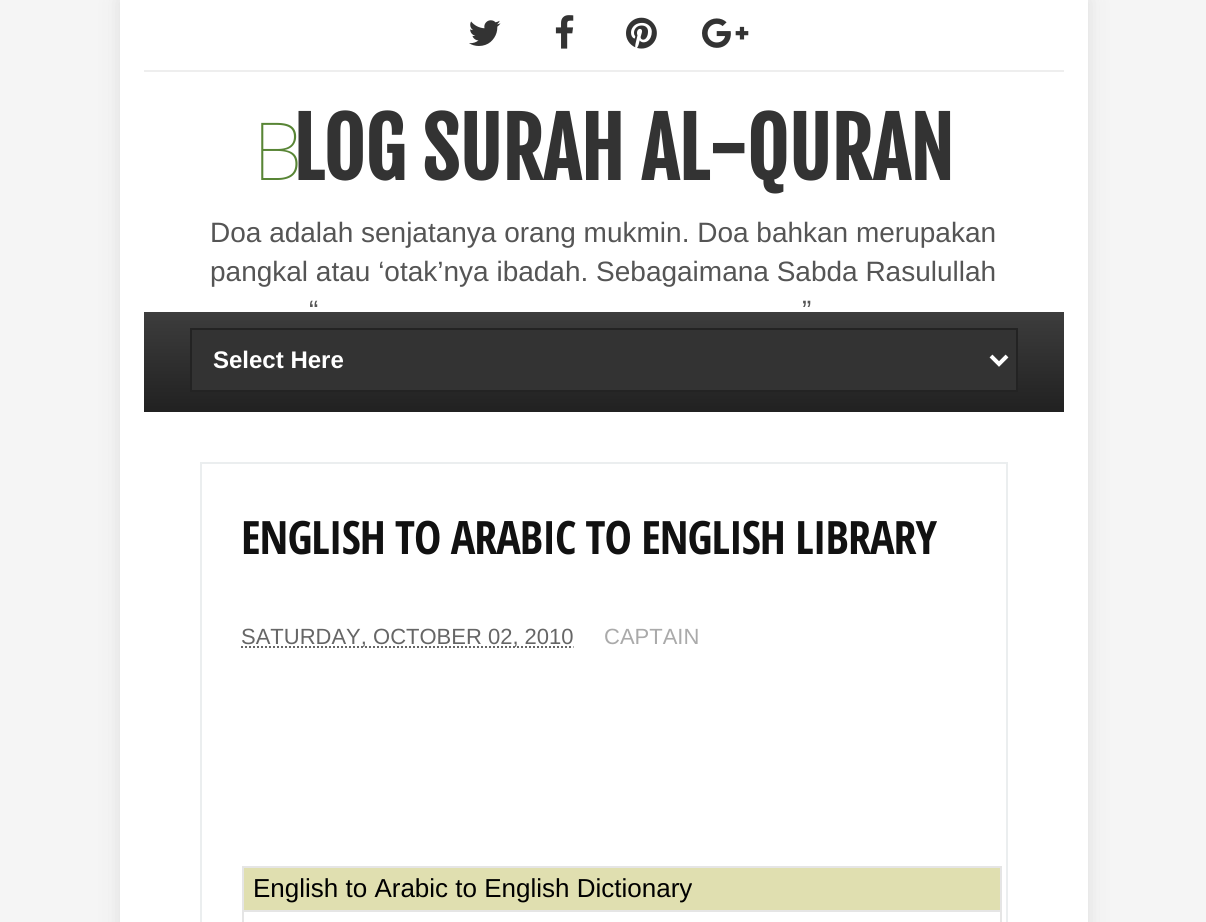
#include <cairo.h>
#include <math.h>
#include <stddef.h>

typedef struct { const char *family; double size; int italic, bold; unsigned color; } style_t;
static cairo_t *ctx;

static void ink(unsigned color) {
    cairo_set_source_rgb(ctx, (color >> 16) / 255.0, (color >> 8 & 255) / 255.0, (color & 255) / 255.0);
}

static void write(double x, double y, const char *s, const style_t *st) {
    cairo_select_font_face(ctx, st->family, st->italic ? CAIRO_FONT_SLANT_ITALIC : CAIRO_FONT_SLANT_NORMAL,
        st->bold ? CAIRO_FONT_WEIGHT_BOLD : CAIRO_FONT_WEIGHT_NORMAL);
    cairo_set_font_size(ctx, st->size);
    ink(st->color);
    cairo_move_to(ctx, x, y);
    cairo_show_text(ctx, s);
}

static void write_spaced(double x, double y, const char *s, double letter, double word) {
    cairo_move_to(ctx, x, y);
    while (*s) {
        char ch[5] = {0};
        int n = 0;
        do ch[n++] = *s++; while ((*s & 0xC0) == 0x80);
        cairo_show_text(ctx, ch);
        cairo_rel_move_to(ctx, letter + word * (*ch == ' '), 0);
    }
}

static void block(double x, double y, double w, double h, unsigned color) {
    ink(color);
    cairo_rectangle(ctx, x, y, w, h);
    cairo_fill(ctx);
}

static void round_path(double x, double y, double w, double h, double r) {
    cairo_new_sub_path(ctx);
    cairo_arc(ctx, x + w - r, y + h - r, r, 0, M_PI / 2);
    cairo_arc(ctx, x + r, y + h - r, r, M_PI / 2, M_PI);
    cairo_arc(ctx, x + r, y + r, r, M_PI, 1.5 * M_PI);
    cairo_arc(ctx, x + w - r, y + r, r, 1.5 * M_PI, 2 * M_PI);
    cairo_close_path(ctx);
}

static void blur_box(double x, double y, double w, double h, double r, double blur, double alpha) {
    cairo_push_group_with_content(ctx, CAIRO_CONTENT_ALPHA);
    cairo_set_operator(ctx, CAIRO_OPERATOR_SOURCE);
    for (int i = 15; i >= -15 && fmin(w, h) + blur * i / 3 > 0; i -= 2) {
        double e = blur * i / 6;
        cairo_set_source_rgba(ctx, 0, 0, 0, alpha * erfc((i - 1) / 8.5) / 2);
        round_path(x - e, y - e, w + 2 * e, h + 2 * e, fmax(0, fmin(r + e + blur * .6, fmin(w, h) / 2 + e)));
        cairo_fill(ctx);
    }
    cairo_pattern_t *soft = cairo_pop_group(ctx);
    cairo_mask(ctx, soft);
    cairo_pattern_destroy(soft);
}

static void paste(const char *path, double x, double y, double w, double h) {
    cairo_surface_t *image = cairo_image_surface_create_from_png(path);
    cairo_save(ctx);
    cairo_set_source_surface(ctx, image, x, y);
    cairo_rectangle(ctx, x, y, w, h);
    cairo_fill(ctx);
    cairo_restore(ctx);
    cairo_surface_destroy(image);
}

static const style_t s1 = {"Noto Sans Thin", 80, 0, 0, 0x588535};
static const style_t s2 = {"Fjalla One", 80, 0, 1, 0x333333};
static const style_t s3 = {"Liberation Sans", 28, 0, 0, 0x555555};
static const style_t s4 = {"Liberation Sans", 24, 0, 1, 0xffffff};
static const style_t s5 = {"Liberation Sans", 22, 0, 0, 0x666666};
static const style_t s6 = {"Liberation Sans", 22, 0, 0, 0xaaaaaa};
static const style_t s7 = {"Liberation Sans", 26, 0, 0, 0x000000};

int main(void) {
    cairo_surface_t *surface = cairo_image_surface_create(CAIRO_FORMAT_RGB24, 1206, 922);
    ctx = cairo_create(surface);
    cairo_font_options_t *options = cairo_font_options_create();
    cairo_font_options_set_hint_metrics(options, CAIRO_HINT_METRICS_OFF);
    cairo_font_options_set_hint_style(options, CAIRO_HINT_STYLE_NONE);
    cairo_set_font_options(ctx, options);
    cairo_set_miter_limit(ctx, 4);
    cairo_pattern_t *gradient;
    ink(0xf5f5f5);
    cairo_paint(ctx);
    ink(0xdddddd);
    blur_box(120, 0, 968, 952, 0, 10, 1);
    block(120, 0, 968, 922, 0xffffff);
    block(144, 70, 920, 2, 0xeeeeee);
    paste("pic1.png", 469, 20, 32, 26);
    paste("pic2.png", 555, 15, 19, 34);
    paste("pic3.png", 626, 17, 31, 32);
    paste("pic4.png", 702, 18, 47, 30);
    write(253, 180, "B", &s1);
    write(293, 180, "LOG SURAH AL-QURAN", &s2);
    write(210, 242, "Doa adalah senjatanya orang mukmin. Doa bahkan merupakan", &s3);
    write(210, 281, "pangkal atau ‘otak’nya ibadah. Sebagaimana Sabda Rasulullah", &s3);
    write(309, 320, "“", &s3);
    write(802, 320, "”", &s3);
    gradient = cairo_pattern_create_linear(604, 312, 604, 412);
    cairo_pattern_add_color_stop_rgba(gradient, 0, 0.239, 0.239, 0.239, 1);
    cairo_pattern_add_color_stop_rgba(gradient, 1, 0.129, 0.129, 0.129, 1);
    cairo_set_source(ctx, gradient);
    cairo_pattern_destroy(gradient);
    cairo_rectangle(ctx, 144, 312, 920, 100);
    cairo_fill(ctx);
    ink(0x333333);
    cairo_rectangle(ctx, 191, 329, 826, 62);
    cairo_fill_preserve(ctx);
    ink(0x232323);
    cairo_stroke(ctx);
    cairo_new_path(ctx);
    cairo_move_to(ctx, 991, 356);
    cairo_line_to(ctx, 999, 364);
    cairo_line_to(ctx, 1007, 356);
    ink(0xffffff);
    cairo_set_line_width(ctx, 4);
    cairo_stroke(ctx);
    write(213, 368, "Select Here", &s4);
    cairo_rectangle(ctx, 201, 463, 806, 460);
    ink(0xebeeef);
    cairo_set_line_width(ctx, 2);
    cairo_stroke(ctx);
    cairo_select_font_face(ctx, "Open Sans Condensed", CAIRO_FONT_SLANT_NORMAL, CAIRO_FONT_WEIGHT_BOLD);
    cairo_set_font_size(ctx, 46);
    ink(0x111111);
    write_spaced(241, 554, "ENGLISH TO ARABIC TO ENGLISH LIBRARY", -1, 0);
    cairo_new_path(ctx);
    cairo_move_to(ctx, 241, 647);
    cairo_line_to(ctx, 573.5, 647);
    ink(0x666666);
    cairo_set_dash(ctx, (double[]){2, 2}, 2, 0);
    cairo_stroke(ctx);
    write(241, 644, "SATURDAY, OCTOBER 02, 2010", &s5);
    write(604, 644, "CAPTAIN", &s6);
    block(244, 868, 756, 42, 0xe0dfb0);
    block(242, 866, 760, 2, 0xe5e5e5);
    block(242, 910, 760, 2, 0xe5e5e5);
    block(1000, 910, 2, 12, 0xe5e5e5);
    block(1000, 866, 2, 46, 0xe5e5e5);
    block(242, 910, 2, 12, 0xe5e5e5);
    block(242, 866, 2, 46, 0xe5e5e5);
    write(253, 897, "English to Arabic to English Dictionary", &s7);
    cairo_surface_write_to_png(surface, "screenshot.png");
    cairo_font_options_destroy(options);
    cairo_destroy(ctx);
    cairo_surface_destroy(surface);
    return 0;
}
